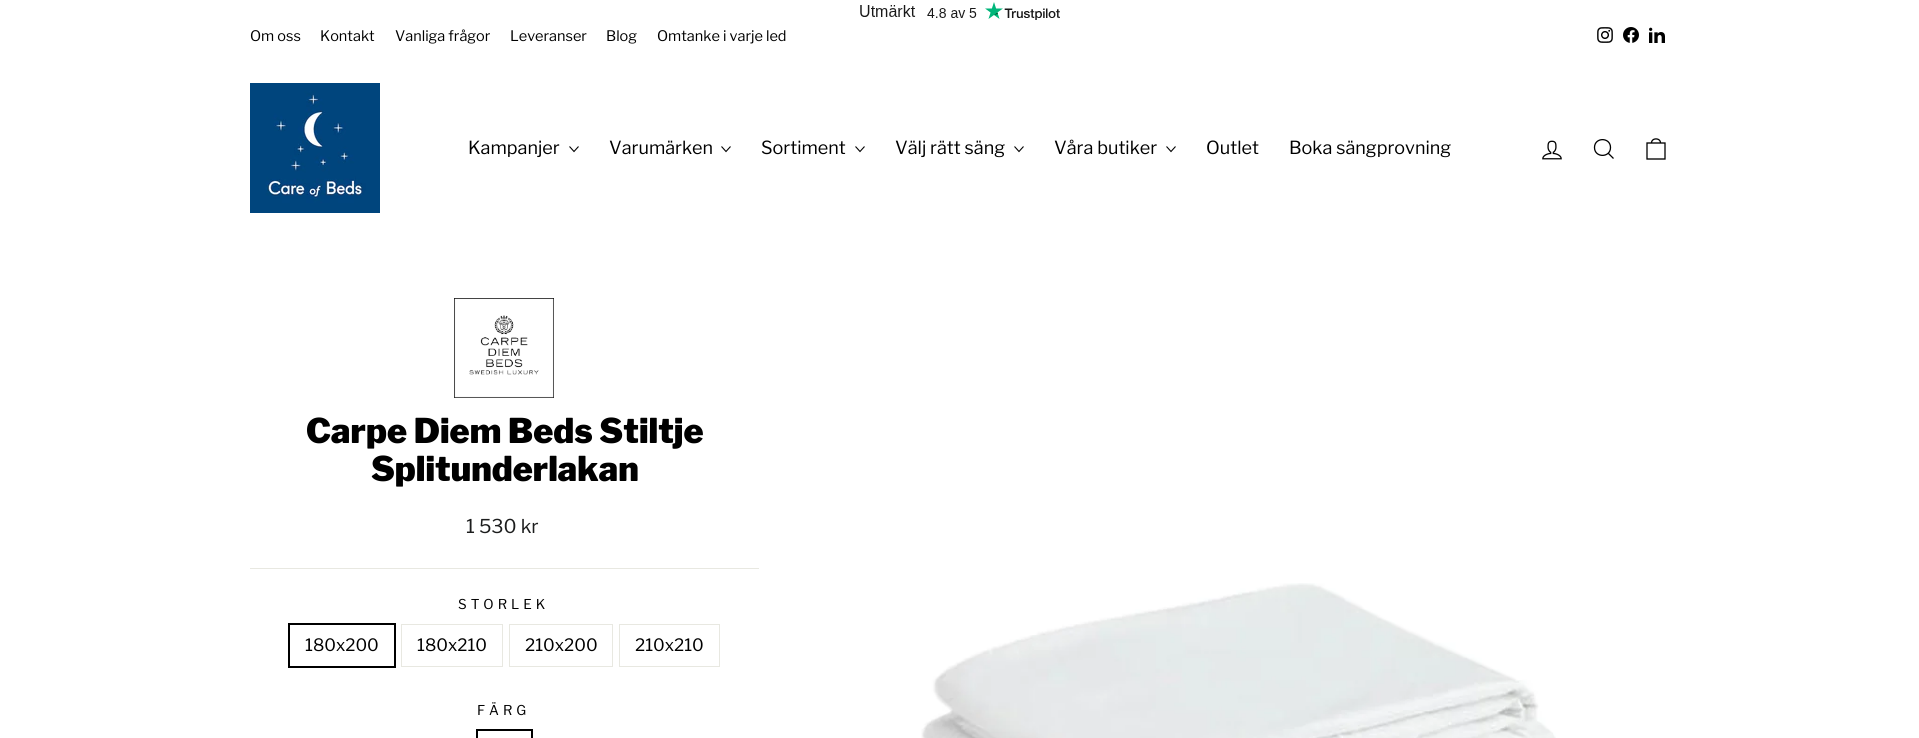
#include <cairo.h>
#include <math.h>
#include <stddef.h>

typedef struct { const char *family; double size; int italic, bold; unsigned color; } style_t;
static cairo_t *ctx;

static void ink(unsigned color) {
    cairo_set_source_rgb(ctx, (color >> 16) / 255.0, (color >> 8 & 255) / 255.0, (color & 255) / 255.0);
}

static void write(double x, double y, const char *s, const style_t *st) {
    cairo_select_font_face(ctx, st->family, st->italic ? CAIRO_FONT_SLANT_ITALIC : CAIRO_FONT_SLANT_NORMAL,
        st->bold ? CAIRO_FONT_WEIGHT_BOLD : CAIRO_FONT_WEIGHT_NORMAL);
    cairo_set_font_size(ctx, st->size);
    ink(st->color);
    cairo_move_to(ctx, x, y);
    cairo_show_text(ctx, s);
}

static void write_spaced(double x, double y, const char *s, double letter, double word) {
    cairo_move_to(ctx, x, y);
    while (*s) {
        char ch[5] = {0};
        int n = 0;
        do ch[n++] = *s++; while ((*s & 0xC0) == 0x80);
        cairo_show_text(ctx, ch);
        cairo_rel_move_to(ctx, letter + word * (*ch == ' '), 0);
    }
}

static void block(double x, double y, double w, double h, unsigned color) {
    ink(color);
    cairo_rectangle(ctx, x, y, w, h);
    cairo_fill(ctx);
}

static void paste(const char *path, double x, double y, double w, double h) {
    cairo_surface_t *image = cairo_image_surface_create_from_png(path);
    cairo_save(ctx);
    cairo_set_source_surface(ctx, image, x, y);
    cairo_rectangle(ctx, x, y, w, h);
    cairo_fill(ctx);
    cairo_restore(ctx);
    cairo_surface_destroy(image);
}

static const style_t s1 = {"Libre Franklin", 14.5, 0, 0, 0x000000};
static const style_t s2 = {"Libre Franklin", 18, 0, 0, 0x000000};
static const style_t s3 = {"Libre Franklin Black", 34, 0, 0, 0x000000};
static const style_t s4 = {"Libre Franklin", 19, 0, 0, 0x1c1d1d};
static const style_t s5 = {"Libre Franklin", 17, 0, 0, 0x000000};

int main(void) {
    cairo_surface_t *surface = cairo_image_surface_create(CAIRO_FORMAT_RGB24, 1919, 738);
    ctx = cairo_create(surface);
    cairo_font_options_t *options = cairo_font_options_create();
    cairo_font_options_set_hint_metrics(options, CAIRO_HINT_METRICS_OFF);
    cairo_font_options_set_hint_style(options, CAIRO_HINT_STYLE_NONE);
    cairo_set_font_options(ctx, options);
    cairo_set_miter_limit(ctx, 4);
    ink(0xffffff);
    cairo_paint(ctx);
    paste("pic1.png", 860, 2, 200, 18);
    write(250, 41, "Om oss", &s1);
    write(320, 41, "Kontakt", &s1);
    write(395, 41, "Vanliga frågor", &s1);
    write(510, 41, "Leveranser", &s1);
    write(606, 41, "Blog", &s1);
    write(657, 41, "Omtanke i varje led", &s1);
    paste("pic2.png", 1597, 27, 16, 16);
    paste("pic3.png", 1623, 27, 16, 16);
    paste("pic4.png", 1649, 27, 16, 16);
    paste("pic5.png", 250, 83, 130, 130);
    write(468, 154, "Kampanjer", &s2);
    cairo_new_path(ctx);
    cairo_move_to(ctx, 569.5, 146.5);
    cairo_line_to(ctx, 574, 151.5);
    cairo_line_to(ctx, 578.5, 146.5);
    cairo_set_line_width(ctx, 1.1);
    cairo_stroke(ctx);
    write(609, 154, "Varumärken", &s2);
    cairo_new_path(ctx);
    cairo_move_to(ctx, 721.5, 146.5);
    cairo_line_to(ctx, 726, 151.5);
    cairo_line_to(ctx, 730.5, 146.5);
    cairo_stroke(ctx);
    write(761, 154, "Sortiment", &s2);
    cairo_new_path(ctx);
    cairo_move_to(ctx, 855.5, 146.5);
    cairo_line_to(ctx, 860, 151.5);
    cairo_line_to(ctx, 864.5, 146.5);
    cairo_stroke(ctx);
    write(895, 154, "Välj rätt säng", &s2);
    cairo_new_path(ctx);
    cairo_move_to(ctx, 1014.5, 146.5);
    cairo_line_to(ctx, 1019, 151.5);
    cairo_line_to(ctx, 1023.5, 146.5);
    cairo_stroke(ctx);
    write(1054, 154, "Våra butiker", &s2);
    cairo_new_path(ctx);
    cairo_move_to(ctx, 1166.5, 146.5);
    cairo_line_to(ctx, 1171, 151.5);
    cairo_line_to(ctx, 1175.5, 146.5);
    cairo_stroke(ctx);
    write(1206, 154, "Outlet", &s2);
    write(1289, 154, "Boka sängprovning", &s2);
    paste("pic6.png", 1542, 140, 20, 20);
    cairo_new_path(ctx);
    cairo_move_to(ctx, 1610.5, 147.5);
    cairo_curve_to(ctx, 1610.5, 158, 1594.5, 158, 1594.5, 147.5);
    cairo_curve_to(ctx, 1594.5, 137, 1610.5, 137, 1610.5, 147.5);
    cairo_close_path(ctx);
    cairo_move_to(ctx, 1613.5, 158.5);
    cairo_line_to(ctx, 1608.5, 153.5);
    cairo_set_line_width(ctx, 1.3);
    cairo_stroke(ctx);
    cairo_new_path(ctx);
    cairo_move_to(ctx, 1647, 143);
    cairo_line_to(ctx, 1665, 143);
    cairo_line_to(ctx, 1665, 159);
    cairo_line_to(ctx, 1647, 159);
    cairo_close_path(ctx);
    cairo_move_to(ctx, 1651.5, 143);
    cairo_curve_to(ctx, 1651.5, 137.5, 1660.5, 137.5, 1660.5, 143);
    cairo_stroke(ctx);
    paste("pic7.png", 454, 298, 100, 100);
    write(306, 443, "Carpe Diem Beds Stiltje", &s3);
    write(371, 481, "Splitunderlakan", &s3);
    write(466, 533, "1 530 kr", &s4);
    block(250, 568, 509, 1, 0xe8e8e1);
    cairo_set_font_size(ctx, 13.5);
    ink(0x000000);
    write_spaced(458, 609, "STORLEK", 4, 0);
    cairo_rectangle(ctx, 289, 624, 106, 43);
    cairo_set_line_width(ctx, 2);
    cairo_stroke(ctx);
    write(305, 651, "180x200", &s5);
    cairo_rectangle(ctx, 401.5, 624.5, 101, 42);
    ink(0xe8e8e1);
    cairo_set_line_width(ctx, 1);
    cairo_stroke(ctx);
    write(417, 651, "180x210", &s5);
    cairo_rectangle(ctx, 509.5, 624.5, 103, 42);
    ink(0xe8e8e1);
    cairo_stroke(ctx);
    write(525, 651, "210x200", &s5);
    cairo_rectangle(ctx, 619.5, 624.5, 100, 42);
    ink(0xe8e8e1);
    cairo_stroke(ctx);
    write(635, 651, "210x210", &s5);
    cairo_set_font_size(ctx, 13.5);
    write_spaced(477, 715, "FÄRG", 4, 0);
    cairo_rectangle(ctx, 477, 730, 55, 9);
    cairo_set_line_width(ctx, 2);
    cairo_stroke(ctx);
    paste("pic8.png", 921, 583, 635, 155);
    cairo_surface_write_to_png(surface, "screenshot.png");
    cairo_font_options_destroy(options);
    cairo_destroy(ctx);
    cairo_surface_destroy(surface);
    return 0;
}
